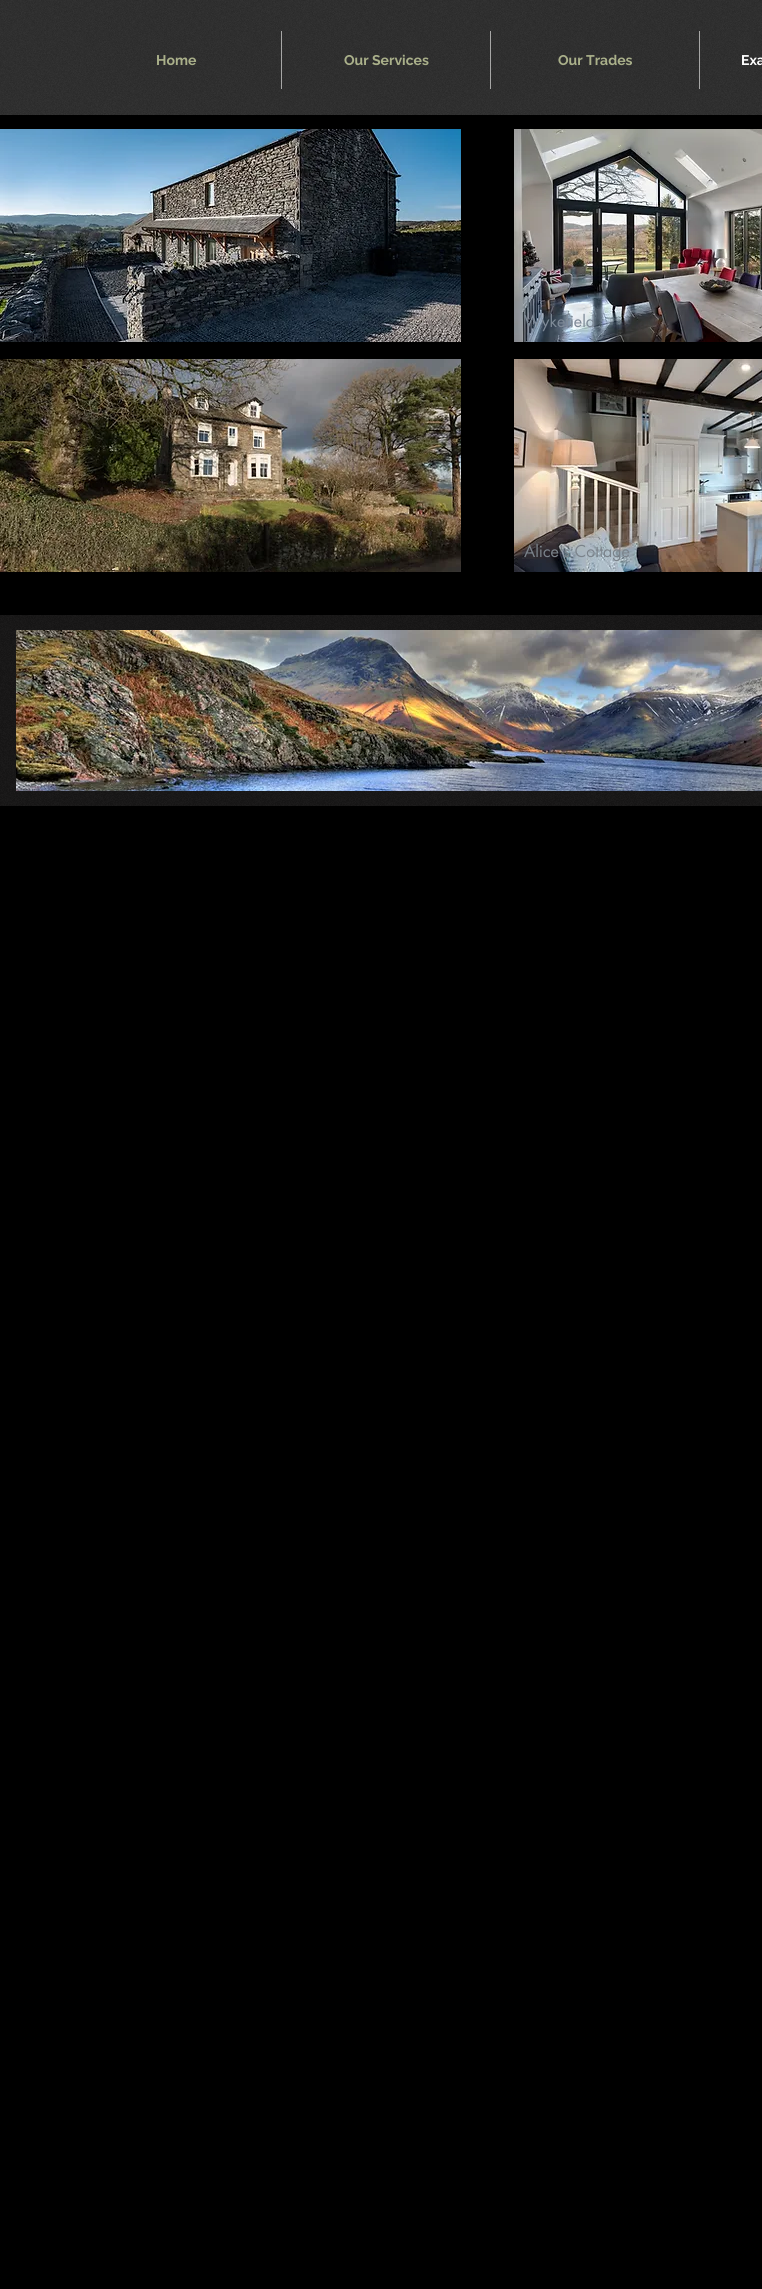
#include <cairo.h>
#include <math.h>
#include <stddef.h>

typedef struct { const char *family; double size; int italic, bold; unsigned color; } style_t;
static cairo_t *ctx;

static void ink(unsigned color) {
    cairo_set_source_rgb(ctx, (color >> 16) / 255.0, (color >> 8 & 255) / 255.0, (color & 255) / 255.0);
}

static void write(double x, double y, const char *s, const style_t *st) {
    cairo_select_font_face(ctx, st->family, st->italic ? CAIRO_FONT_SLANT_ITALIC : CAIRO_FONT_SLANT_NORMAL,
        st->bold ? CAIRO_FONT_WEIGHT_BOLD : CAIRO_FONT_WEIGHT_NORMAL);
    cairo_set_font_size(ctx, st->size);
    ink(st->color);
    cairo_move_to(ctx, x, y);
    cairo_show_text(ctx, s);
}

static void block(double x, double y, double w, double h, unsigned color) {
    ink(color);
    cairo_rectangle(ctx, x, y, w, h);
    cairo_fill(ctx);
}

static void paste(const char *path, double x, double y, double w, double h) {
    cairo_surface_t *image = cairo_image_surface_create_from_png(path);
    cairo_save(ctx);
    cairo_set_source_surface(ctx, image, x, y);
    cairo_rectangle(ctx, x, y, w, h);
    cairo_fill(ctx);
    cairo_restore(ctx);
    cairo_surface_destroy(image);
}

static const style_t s1 = {"Raleway", 14, 0, 1, 0xaab08a};
static const style_t s2 = {"Raleway", 14, 0, 1, 0xffffff};
static const style_t s3 = {"Liberation Sans", 12, 0, 0, 0x827b79};
static const style_t s4 = {"futura", 16, 0, 0, 0x7e8a97};
static const style_t s5 = {"futura", 16, 0, 0, 0x7b838b};

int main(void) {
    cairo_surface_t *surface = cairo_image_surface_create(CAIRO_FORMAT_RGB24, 762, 2289);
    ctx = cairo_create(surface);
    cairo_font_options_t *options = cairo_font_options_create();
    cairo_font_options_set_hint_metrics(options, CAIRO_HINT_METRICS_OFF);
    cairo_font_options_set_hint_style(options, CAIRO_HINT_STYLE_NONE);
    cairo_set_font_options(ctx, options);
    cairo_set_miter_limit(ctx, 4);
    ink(0x000000);
    cairo_paint(ctx);
    block(0, 0, 762, 115, 0x2e2e2e);
    paste("pic1.png", 0, 0, 762, 115);
    write(156, 65, "Home", &s1);
    block(281, 31, 1, 58, 0xa7a7a6);
    write(344, 65, "Our Services", &s1);
    block(490, 31, 1, 58, 0xa7a7a6);
    write(558, 65, "Our Trades", &s1);
    block(699, 31, 1, 58, 0xa7a7a6);
    write(741, 65, "Exa", &s2);
    paste("pic2.png", 0, 129, 461, 213);
    write(428, 329, "1/27", &s3);
    paste("pic3.png", 514, 129, 248, 213);
    write(524, 327, "Wykefield", &s4);
    paste("pic4.png", 0, 359, 461, 213);
    paste("pic5.png", 514, 359, 248, 213);
    write(524, 557, "Alice's Cottage", &s5);
    block(0, 615, 762, 191, 0x171616);
    paste("pic6.png", 0, 615, 762, 191);
    paste("pic7.png", 16, 630, 746, 161);
    cairo_surface_write_to_png(surface, "screenshot.png");
    cairo_font_options_destroy(options);
    cairo_destroy(ctx);
    cairo_surface_destroy(surface);
    return 0;
}
